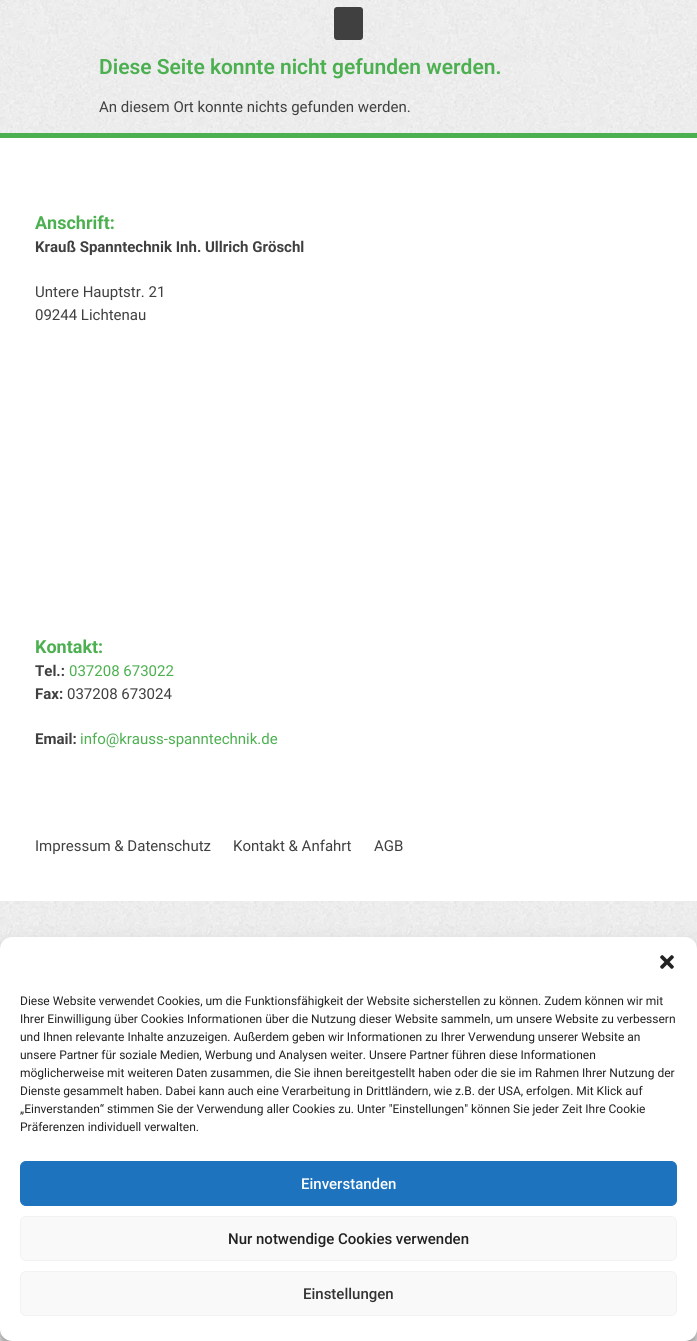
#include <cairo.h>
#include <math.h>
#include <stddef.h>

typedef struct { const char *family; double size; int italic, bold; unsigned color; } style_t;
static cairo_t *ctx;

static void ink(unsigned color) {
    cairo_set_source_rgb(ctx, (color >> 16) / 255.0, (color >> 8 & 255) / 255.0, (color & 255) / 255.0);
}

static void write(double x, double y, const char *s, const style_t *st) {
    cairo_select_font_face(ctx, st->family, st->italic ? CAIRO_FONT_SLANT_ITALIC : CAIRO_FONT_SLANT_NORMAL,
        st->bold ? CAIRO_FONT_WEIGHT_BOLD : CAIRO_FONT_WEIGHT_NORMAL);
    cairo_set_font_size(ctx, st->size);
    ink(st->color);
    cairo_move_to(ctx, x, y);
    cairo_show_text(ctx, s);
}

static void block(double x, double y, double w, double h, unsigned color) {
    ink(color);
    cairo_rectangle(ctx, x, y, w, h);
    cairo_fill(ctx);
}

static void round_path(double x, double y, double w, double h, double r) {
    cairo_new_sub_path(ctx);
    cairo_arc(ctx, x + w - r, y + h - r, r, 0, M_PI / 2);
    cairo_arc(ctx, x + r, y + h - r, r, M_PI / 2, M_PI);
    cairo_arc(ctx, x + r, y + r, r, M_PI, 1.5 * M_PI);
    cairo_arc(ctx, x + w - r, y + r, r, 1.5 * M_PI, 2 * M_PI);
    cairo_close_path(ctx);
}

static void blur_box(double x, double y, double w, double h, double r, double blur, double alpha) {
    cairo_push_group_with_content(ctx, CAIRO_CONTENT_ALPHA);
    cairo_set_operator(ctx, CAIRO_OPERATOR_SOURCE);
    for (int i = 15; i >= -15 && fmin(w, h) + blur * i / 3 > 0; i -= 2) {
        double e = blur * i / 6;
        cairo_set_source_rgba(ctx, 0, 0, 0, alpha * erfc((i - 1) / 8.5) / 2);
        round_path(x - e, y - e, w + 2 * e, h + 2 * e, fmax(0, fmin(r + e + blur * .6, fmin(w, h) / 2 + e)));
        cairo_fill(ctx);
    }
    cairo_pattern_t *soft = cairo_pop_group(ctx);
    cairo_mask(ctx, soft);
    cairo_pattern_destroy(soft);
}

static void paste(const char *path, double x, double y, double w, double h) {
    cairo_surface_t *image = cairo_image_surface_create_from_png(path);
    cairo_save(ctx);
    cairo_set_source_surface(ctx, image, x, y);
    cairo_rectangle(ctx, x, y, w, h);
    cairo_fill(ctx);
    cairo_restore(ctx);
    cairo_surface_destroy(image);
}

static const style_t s1 = {"Roboto SemiBold", 21, 0, 0, 0x4cb050};
static const style_t s2 = {"Roboto", 15, 0, 0, 0x404040};
static const style_t s3 = {"Roboto", 18, 0, 1, 0x4cb050};
static const style_t s4 = {"Roboto", 15, 0, 1, 0x404040};
static const style_t s5 = {"Roboto", 15, 0, 0, 0x4cb050};
static const style_t s6 = {"Roboto", 12, 0, 0, 0x222222};
static const style_t s7 = {"Roboto Medium", 15, 0, 0, 0xffffff};
static const style_t s8 = {"Roboto Medium", 15, 0, 0, 0x222222};
static const style_t s9 = {"Roboto Medium", 15, 0, 0, 0x333333};

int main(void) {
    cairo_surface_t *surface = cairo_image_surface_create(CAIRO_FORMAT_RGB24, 697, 1341);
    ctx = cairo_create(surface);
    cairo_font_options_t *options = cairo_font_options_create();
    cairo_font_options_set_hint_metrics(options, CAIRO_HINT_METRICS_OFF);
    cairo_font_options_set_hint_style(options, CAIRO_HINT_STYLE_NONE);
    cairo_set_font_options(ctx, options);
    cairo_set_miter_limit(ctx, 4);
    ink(0xffffff);
    cairo_paint(ctx);
    paste("pic1.png", 0, 0, 697, 1341);
    ink(0x404040);
    round_path(334, 7, 29, 33, 3);
    cairo_fill(ctx);
    write(99, 74, "Diese Seite konnte nicht gefunden werden.", &s1);
    write(99, 112, "An diesem Ort konnte nichts gefunden werden.", &s2);
    block(0, 138, 697, 763, 0xffffff);
    block(0, 133, 697, 5, 0x4cb050);
    write(35, 229, "Anschrift:", &s3);
    write(35, 252, "Krauß Spanntechnik Inh. Ullrich Gröschl", &s4);
    write(35, 297, "Untere Hauptstr. 21", &s2);
    write(35, 320, "09244 Lichtenau", &s2);
    write(35, 653, "Kontakt:", &s3);
    write(35, 676, "Tel.:", &s4);
    write(69, 676, "037208 673022", &s5);
    write(35, 699, "Fax:", &s4);
    write(67, 699, "037208 673024", &s2);
    write(35, 744, "Email:", &s4);
    write(80, 744, "info@krauss-spanntechnik.de", &s5);
    write(35, 851, "Impressum & Datenschutz", &s2);
    write(233, 851, "Kontakt & Anfahrt", &s2);
    write(374, 851, "AGB", &s2);
    ink(0x000000);
    blur_box(0, 943, 697, 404, 12, 3, 0.23);
    blur_box(0, 947, 697, 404, 12, 10, 0.19);
    ink(0xffffff);
    round_path(0, 937, 697, 404, 12);
    cairo_fill(ctx);
    paste("pic2.png", 660, 955, 14, 14);
    write(20, 1005, "Diese Website verwendet Cookies, um die Funktionsfähigkeit der Website sicherstellen zu können. Zudem können wir mit", &s6);
    write(20, 1023, "Ihrer Einwilligung über Cookies Informationen über die Nutzung dieser Website sammeln, um unsere Website zu verbessern", &s6);
    write(20, 1041, "und Ihnen relevante Inhalte anzuzeigen. Außerdem geben wir Informationen zu Ihrer Verwendung unserer Website an", &s6);
    write(20, 1059, "unsere Partner für soziale Medien, Werbung und Analysen weiter. Unsere Partner führen diese Informationen", &s6);
    write(20, 1077, "möglicherweise mit weiteren Daten zusammen, die Sie ihnen bereitgestellt haben oder die sie im Rahmen Ihrer Nutzung der", &s6);
    write(20, 1095, "Dienste gesammelt haben. Dabei kann auch eine Verarbeitung in Drittländern, wie z.B. der USA, erfolgen. Mit Klick auf", &s6);
    write(20, 1113, "„Einverstanden“ stimmen Sie der Verwendung aller Cookies zu. Unter \"Einstellungen\" können Sie jeder Zeit Ihre Cookie", &s6);
    write(20, 1131, "Präferenzen individuell verwalten.", &s6);
    ink(0x1e73be);
    round_path(20.5, 1161.5, 656, 44, 5.5);
    cairo_fill_preserve(ctx);
    cairo_set_line_width(ctx, 1);
    cairo_stroke(ctx);
    write(301, 1189, "Einverstanden", &s7);
    ink(0xf9f9f9);
    round_path(20.5, 1216.5, 656, 44, 5.5);
    cairo_fill_preserve(ctx);
    ink(0xf2f2f2);
    cairo_stroke(ctx);
    write(228, 1244, "Nur notwendige Cookies verwenden", &s8);
    ink(0xf9f9f9);
    round_path(20.5, 1271.5, 656, 44, 5.5);
    cairo_fill_preserve(ctx);
    ink(0xf2f2f2);
    cairo_stroke(ctx);
    write(303, 1299, "Einstellungen", &s9);
    cairo_surface_write_to_png(surface, "screenshot.png");
    cairo_font_options_destroy(options);
    cairo_destroy(ctx);
    cairo_surface_destroy(surface);
    return 0;
}
